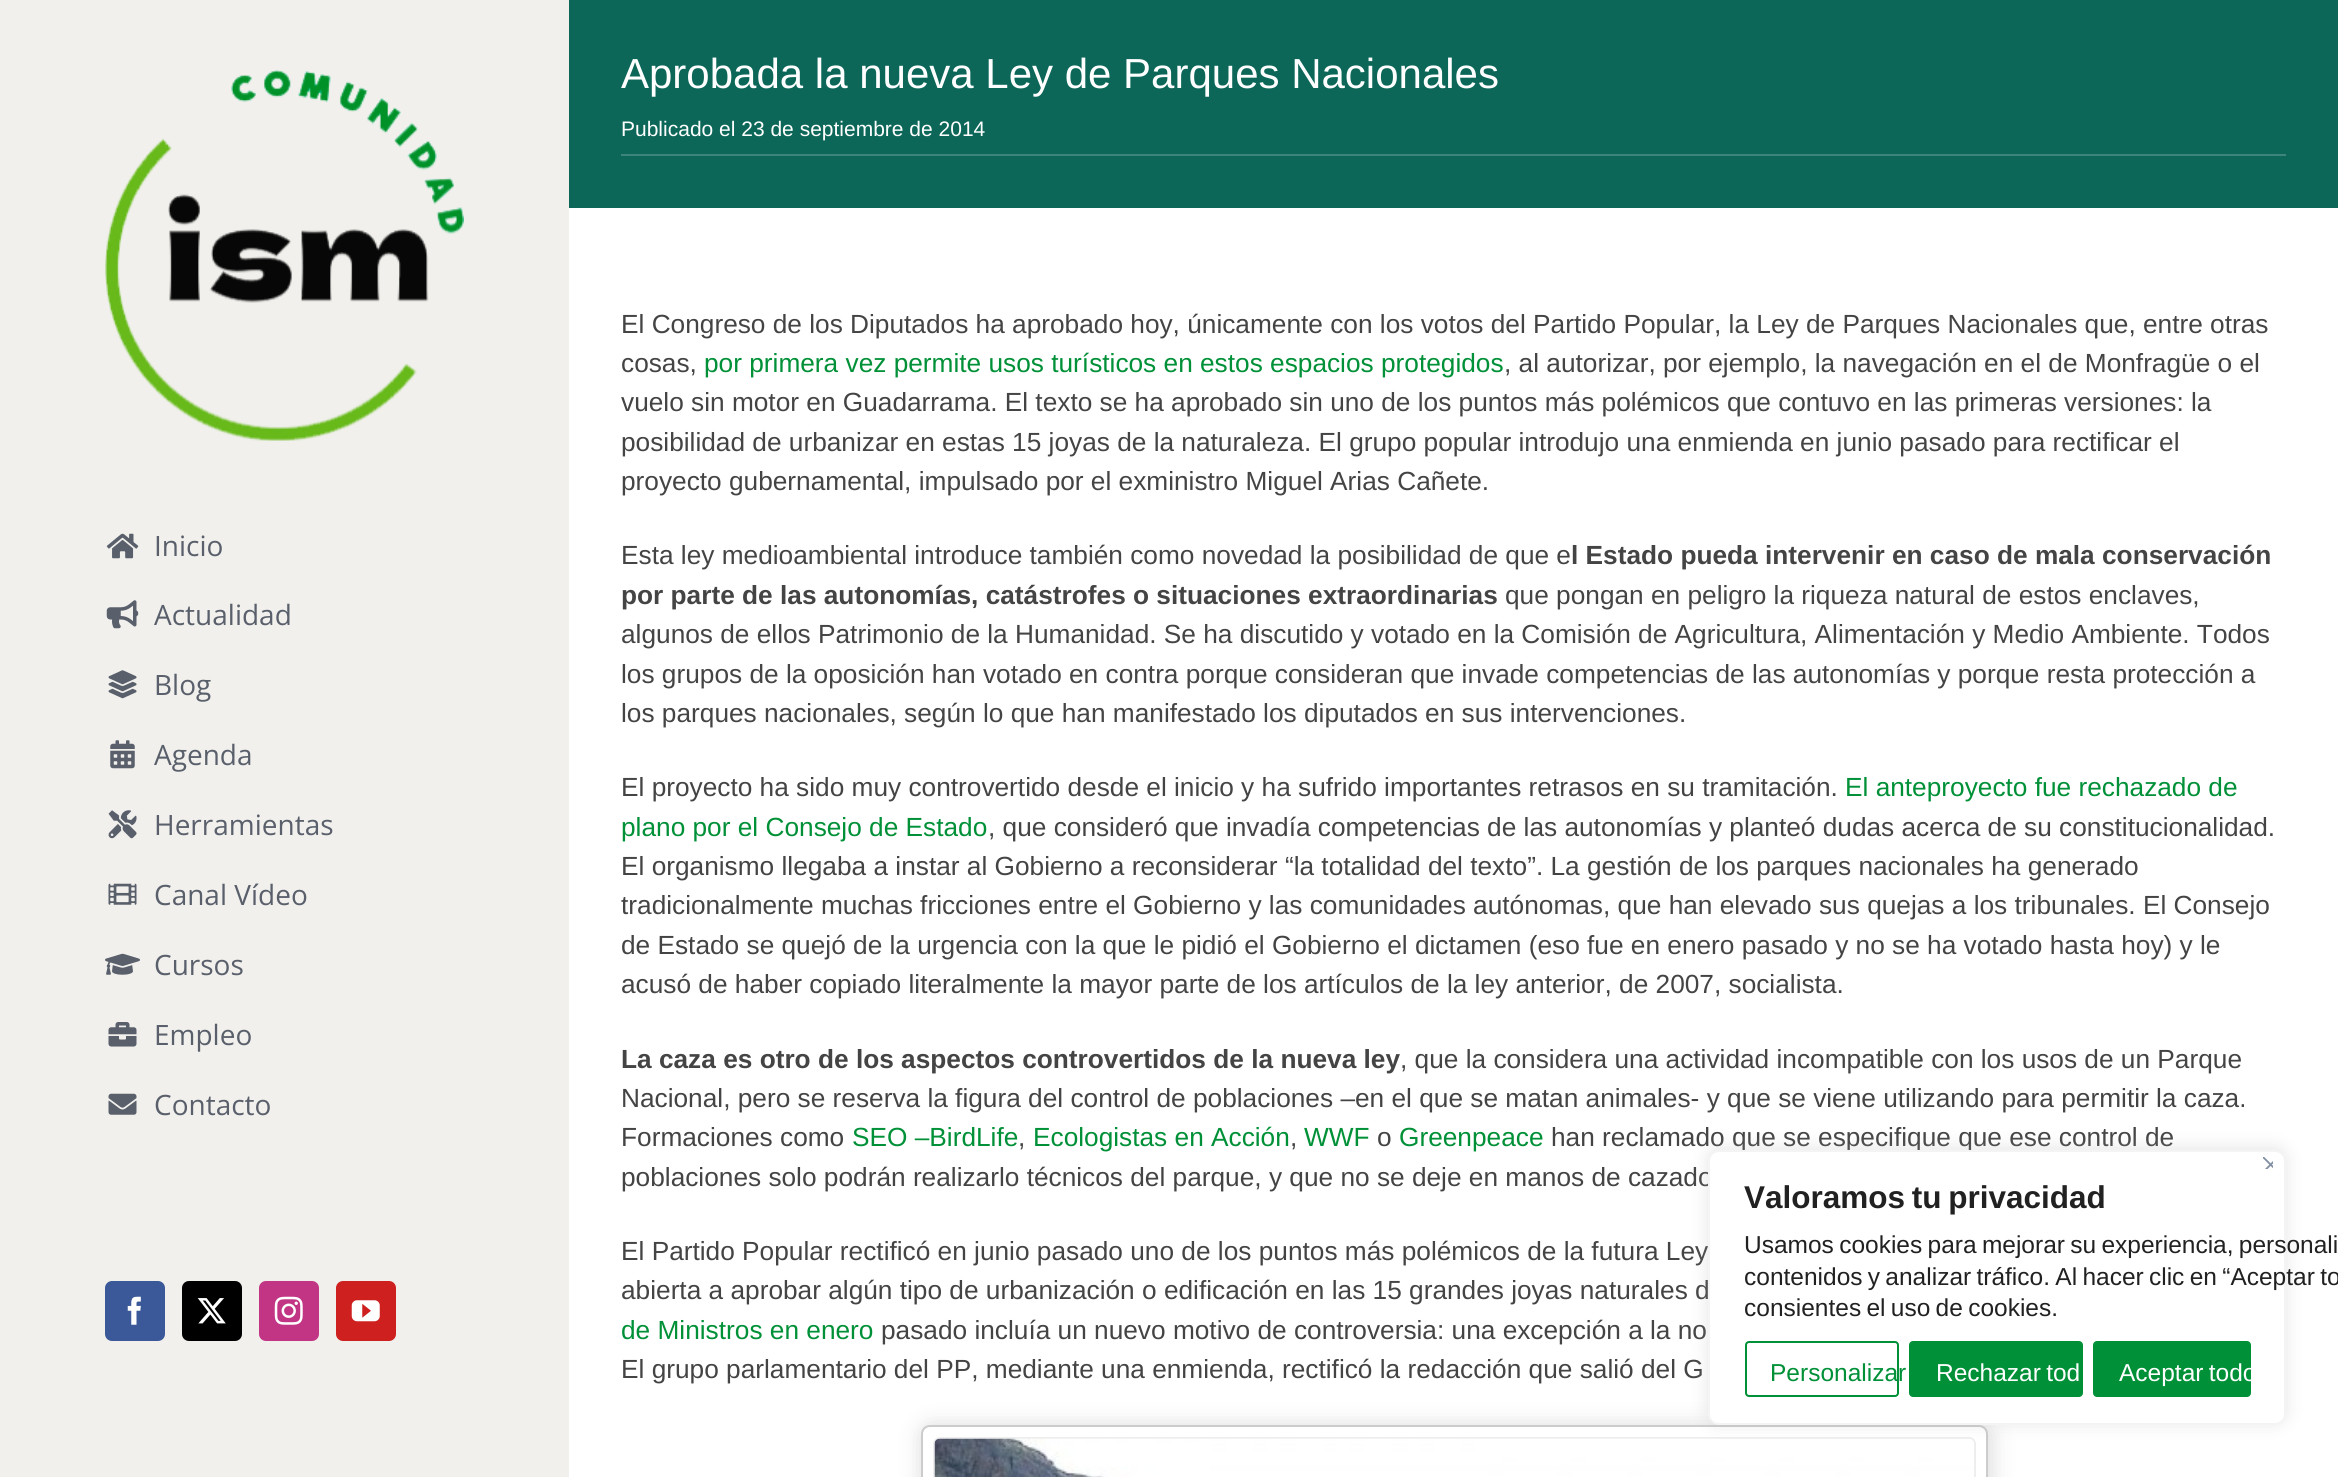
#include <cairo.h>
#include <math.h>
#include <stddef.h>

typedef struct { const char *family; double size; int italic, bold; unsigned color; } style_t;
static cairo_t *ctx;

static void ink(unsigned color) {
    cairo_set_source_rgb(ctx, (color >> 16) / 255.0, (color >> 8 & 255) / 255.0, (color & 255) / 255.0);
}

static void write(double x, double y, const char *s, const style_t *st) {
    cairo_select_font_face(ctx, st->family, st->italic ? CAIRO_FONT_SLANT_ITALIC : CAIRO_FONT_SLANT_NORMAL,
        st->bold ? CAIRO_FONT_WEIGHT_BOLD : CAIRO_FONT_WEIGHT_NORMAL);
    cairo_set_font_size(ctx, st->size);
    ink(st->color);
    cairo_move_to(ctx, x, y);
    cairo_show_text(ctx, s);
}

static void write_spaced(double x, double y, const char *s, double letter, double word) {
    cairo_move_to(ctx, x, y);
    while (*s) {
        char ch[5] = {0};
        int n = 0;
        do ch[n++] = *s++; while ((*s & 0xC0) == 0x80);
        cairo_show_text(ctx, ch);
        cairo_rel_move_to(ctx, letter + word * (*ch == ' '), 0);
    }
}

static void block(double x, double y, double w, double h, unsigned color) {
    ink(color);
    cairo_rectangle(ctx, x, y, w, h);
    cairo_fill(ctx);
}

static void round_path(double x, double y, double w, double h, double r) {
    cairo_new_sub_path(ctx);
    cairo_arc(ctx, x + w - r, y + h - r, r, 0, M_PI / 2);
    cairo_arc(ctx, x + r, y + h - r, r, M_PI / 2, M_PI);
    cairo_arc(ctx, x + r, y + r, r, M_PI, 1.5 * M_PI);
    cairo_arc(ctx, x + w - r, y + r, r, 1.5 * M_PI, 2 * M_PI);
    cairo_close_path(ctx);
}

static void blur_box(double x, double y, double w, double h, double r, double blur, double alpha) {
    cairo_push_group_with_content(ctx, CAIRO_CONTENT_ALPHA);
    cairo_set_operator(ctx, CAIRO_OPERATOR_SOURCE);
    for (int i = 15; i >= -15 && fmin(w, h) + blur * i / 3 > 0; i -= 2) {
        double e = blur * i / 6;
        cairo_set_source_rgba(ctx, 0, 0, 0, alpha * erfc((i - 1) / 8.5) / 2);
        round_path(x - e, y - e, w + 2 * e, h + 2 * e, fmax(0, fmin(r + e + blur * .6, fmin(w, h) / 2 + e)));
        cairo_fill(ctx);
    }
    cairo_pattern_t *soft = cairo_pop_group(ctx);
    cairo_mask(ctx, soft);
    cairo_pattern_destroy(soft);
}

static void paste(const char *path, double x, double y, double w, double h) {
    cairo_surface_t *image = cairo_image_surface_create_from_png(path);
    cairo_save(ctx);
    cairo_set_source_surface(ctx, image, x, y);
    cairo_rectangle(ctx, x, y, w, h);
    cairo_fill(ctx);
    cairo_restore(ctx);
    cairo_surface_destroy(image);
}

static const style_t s1 = {"Liberation Sans", 42, 0, 0, 0xffffff};
static const style_t s2 = {"Liberation Sans", 21, 0, 0, 0xffffff};
static const style_t s3 = {"Open Sans", 28, 0, 0, 0x595f6b};
static const style_t s4 = {"Liberation Sans", 26.25, 0, 0, 0x444444};
static const style_t s5 = {"Liberation Sans", 26.25, 0, 0, 0x009037};
static const style_t s6 = {"Liberation Sans", 26.25, 0, 1, 0x444444};
static const style_t s7 = {"Liberation Sans", 24.5, 0, 0, 0x009037};

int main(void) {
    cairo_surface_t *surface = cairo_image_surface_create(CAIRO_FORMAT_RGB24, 2338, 1477);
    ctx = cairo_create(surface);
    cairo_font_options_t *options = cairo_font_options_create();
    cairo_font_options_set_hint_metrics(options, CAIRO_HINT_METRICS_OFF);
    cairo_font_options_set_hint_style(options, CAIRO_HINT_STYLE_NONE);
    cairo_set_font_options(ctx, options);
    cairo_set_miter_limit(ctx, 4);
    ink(0xffffff);
    cairo_paint(ctx);
    block(569, 0, 1769, 208, 0x0d6759);
    write(621, 88, "Aprobada la nueva Ley de Parques Nacionales", &s1);
    block(621, 154, 1665, 2, 0x3d857a);
    write(621, 136, "Publicado el 23 de septiembre de 2014", &s2);
    block(0, 0, 569, 1477, 0xf1f0ec);
    paste("pic1.png", 105, 70, 359, 371);
    paste("pic2.png", 106, 533, 33, 26);
    write(154, 556, "Inicio", &s3);
    paste("pic3.png", 106, 600, 33, 29);
    write(154, 625, "Actualidad", &s3);
    paste("pic4.png", 108, 670, 29, 29);
    write(154, 695, "Blog", &s3);
    paste("pic5.png", 110, 740, 25, 29);
    write(154, 765, "Agenda", &s3);
    paste("pic6.png", 108, 810, 29, 29);
    write(154, 835, "Herramientas", &s3);
    paste("pic7.png", 108, 883, 29, 22);
    write(154, 905, "Canal Vídeo", &s3);
    paste("pic8.png", 105, 953, 35, 22);
    write(154, 975, "Cursos", &s3);
    paste("pic9.png", 108, 1022, 29, 25);
    write(154, 1045, "Empleo", &s3);
    paste("pic10.png", 108, 1093, 29, 22);
    write(154, 1115, "Contacto", &s3);
    ink(0x3b5998);
    round_path(106, 1282, 58, 58, 6);
    cairo_fill_preserve(ctx);
    cairo_stroke(ctx);
    paste("pic11.png", 127, 1296, 14, 29);
    ink(0x000000);
    round_path(183, 1282, 58, 58, 6);
    cairo_fill_preserve(ctx);
    cairo_stroke(ctx);
    paste("pic12.png", 197, 1298, 29, 26);
    ink(0xc13584);
    round_path(260, 1282, 58, 58, 6);
    cairo_fill_preserve(ctx);
    cairo_stroke(ctx);
    paste("pic13.png", 274, 1296, 29, 29);
    ink(0xcd201f);
    round_path(337, 1282, 58, 58, 6);
    cairo_fill_preserve(ctx);
    cairo_stroke(ctx);
    paste("pic14.png", 351, 1300, 29, 22);
    write(621, 333, "El Congreso de los Diputados ha aprobado hoy, únicamente con los votos del Partido Popular, la Ley de Parques Nacionales que, entre otras", &s4);
    write(621, 372, "cosas,", &s4);
    write(704, 372, "por primera vez permite usos turísticos en estos espacios protegidos", &s5);
    write(1504, 372, ", al autorizar, por ejemplo, la navegación en el de Monfragüe o el", &s4);
    write(621, 411, "vuelo sin motor en Guadarrama. El texto se ha aprobado sin uno de los puntos más polémicos que contuvo en las primeras versiones: la", &s4);
    write(621, 451, "posibilidad de urbanizar en estas 15 joyas de la naturaleza. El grupo popular introdujo una enmienda en junio pasado para rectificar el", &s4);
    write(621, 490, "proyecto gubernamental, impulsado por el exministro Miguel Arias Cañete.", &s4);
    write(621, 564, "Esta ley medioambiental introduce también como novedad la posibilidad de que e", &s4);
    write(1571, 564, "l Estado pueda intervenir en caso de mala conservación", &s6);
    write(621, 604, "por parte de las autonomías, catástrofes o situaciones extraordinarias", &s6);
    write(1505, 604, "que pongan en peligro la riqueza natural de estos enclaves,", &s4);
    write(621, 643, "algunos de ellos Patrimonio de la Humanidad. Se ha discutido y votado en la Comisión de Agricultura, Alimentación y Medio Ambiente. Todos", &s4);
    write(621, 683, "los grupos de la oposición han votado en contra porque consideran que invade competencias de las autonomías y porque resta protección a", &s4);
    write(621, 722, "los parques nacionales, según lo que han manifestado los diputados en sus intervenciones.", &s4);
    write(621, 796, "El proyecto ha sido muy controvertido desde el inicio y ha sufrido importantes retrasos en su tramitación.", &s4);
    write(1845, 796, "El anteproyecto fue rechazado de", &s5);
    write(621, 836, "plano por el Consejo de Estado", &s5);
    write(988, 836, ", que consideró que invadía competencias de las autonomías y planteó dudas acerca de su constitucionalidad.", &s4);
    write(621, 875, "El organismo llegaba a instar al Gobierno a reconsiderar “la totalidad del texto”. La gestión de los parques nacionales ha generado", &s4);
    write(621, 914, "tradicionalmente muchas fricciones entre el Gobierno y las comunidades autónomas, que han elevado sus quejas a los tribunales. El Consejo", &s4);
    write(621, 954, "de Estado se quejó de la urgencia con la que le pidió el Gobierno el dictamen (eso fue en enero pasado y no se ha votado hasta hoy) y le", &s4);
    write(621, 993, "acusó de haber copiado literalmente la mayor parte de los artículos de la ley anterior, de 2007, socialista.", &s4);
    write(621, 1068, "La caza es otro de los aspectos controvertidos de la nueva ley", &s6);
    write(1400, 1068, ", que la considera una actividad incompatible con los usos de un Parque", &s4);
    write(621, 1107, "Nacional, pero se reserva la figura del control de poblaciones –en el que se matan animales- y que se viene utilizando para permitir la caza.", &s4);
    write(621, 1146, "Formaciones como", &s4);
    write(852, 1146, "SEO –BirdLife", &s5);
    write(1018, 1146, ",", &s4);
    write(1033, 1146, "Ecologistas en Acción", &s5);
    write(1290, 1146, ",", &s4);
    write(1304, 1146, "WWF", &s5);
    write(1377, 1146, "o", &s4);
    write(1399, 1146, "Greenpeace", &s5);
    write(1551, 1146, "han reclamado que se especifique que ese control de", &s4);
    write(621, 1186, "poblaciones solo podrán realizarlo técnicos del parque, y que no se deje en manos de cazado", &s4);
    write(621, 1260, "El Partido Popular rectificó en junio pasado uno de los puntos más polémicos de la futura Ley", &s4);
    write(621, 1299, "abierta a aprobar algún tipo de urbanización o edificación en las 15 grandes joyas naturales d", &s4);
    write(621, 1339, "de Ministros en enero", &s5);
    write(881, 1339, "pasado incluía un nuevo motivo de controversia: una excepción a la no", &s4);
    write(621, 1378, "El grupo parlamentario del PP, mediante una enmienda, rectificó la redacción que salió del G", &s4);
    ink(0xdddddd);
    blur_box(921, 1425, 1071, 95, 11, 10.5, 1);
    ink(0xffffff);
    round_path(922, 1426, 1065, 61, 8);
    cairo_fill_preserve(ctx);
    ink(0xcccccc);
    cairo_stroke(ctx);
    round_path(934, 1438, 1041, 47, 6);
    ink(0xeeeeee);
    cairo_stroke(ctx);
    paste("pic15.png", 934, 1438, 1040, 39);
    ink(0xacabab);
    blur_box(1708, 1148, 578, 275, 11, 9, 0.3);
    ink(0xffffff);
    round_path(1709, 1151, 576, 273, 10);
    cairo_fill_preserve(ctx);
    ink(0xf4f4f4);
    cairo_stroke(ctx);
    paste("pic16.png", 2263, 1157, 10, 12);
    cairo_select_font_face(ctx, "Liberation Sans", CAIRO_FONT_SLANT_NORMAL, CAIRO_FONT_WEIGHT_BOLD);
    cairo_set_font_size(ctx, 31.5);
    ink(0x212121);
    write_spaced(1744, 1208, "Valoramos tu privacidad", 0, -2);
    cairo_select_font_face(ctx, "Liberation Sans", CAIRO_FONT_SLANT_NORMAL, CAIRO_FONT_WEIGHT_NORMAL);
    cairo_set_font_size(ctx, 24.5);
    write_spaced(1744, 1253, "Usamos cookies para mejorar su experiencia, personali", 0, -1.5);
    write_spaced(1744, 1285, "contenidos y analizar tráfico. Al hacer clic en “Aceptar to", 0, -1.5);
    write_spaced(1744, 1316, "consientes el uso de cookies.", 0, -1.5);
    round_path(1746, 1342, 152, 54, 3);
    ink(0x009037);
    cairo_stroke(ctx);
    write(1770, 1381, "Personalizar", &s7);
    round_path(1910, 1342, 172, 54, 3);
    cairo_fill_preserve(ctx);
    cairo_stroke(ctx);
    ink(0xffffff);
    write_spaced(1936, 1381, "Rechazar tod", 0, -1.5);
    ink(0x009037);
    round_path(2094, 1342, 156, 54, 3);
    cairo_fill_preserve(ctx);
    cairo_stroke(ctx);
    ink(0xffffff);
    write_spaced(2119, 1381, "Aceptar todo", 0, -1.5);
    cairo_surface_write_to_png(surface, "screenshot.png");
    cairo_font_options_destroy(options);
    cairo_destroy(ctx);
    cairo_surface_destroy(surface);
    return 0;
}
